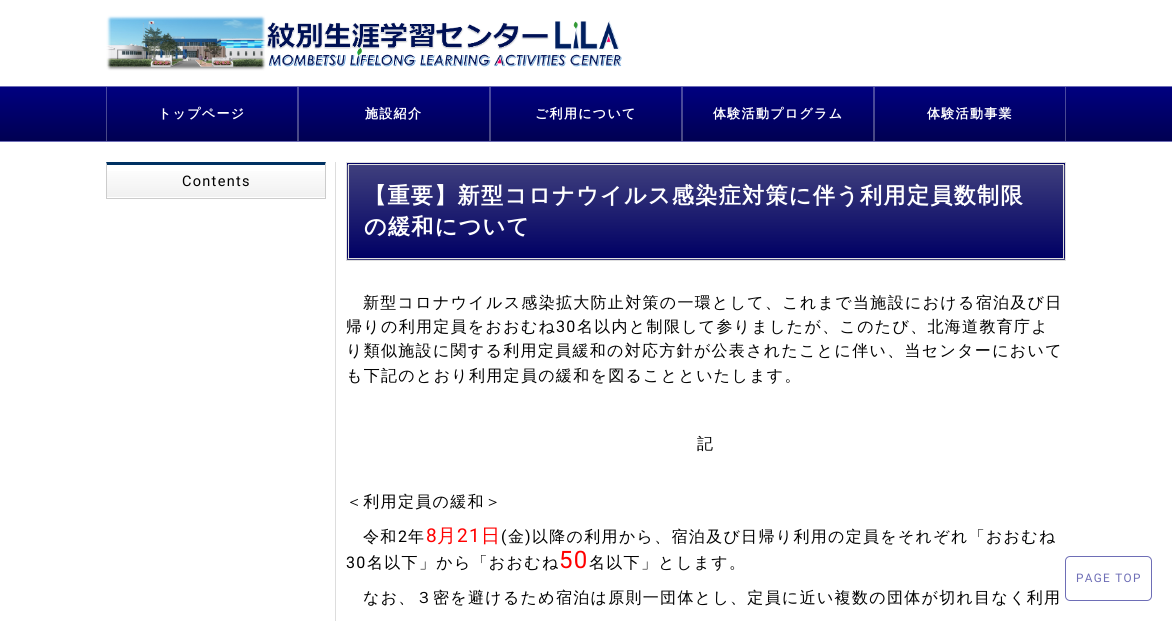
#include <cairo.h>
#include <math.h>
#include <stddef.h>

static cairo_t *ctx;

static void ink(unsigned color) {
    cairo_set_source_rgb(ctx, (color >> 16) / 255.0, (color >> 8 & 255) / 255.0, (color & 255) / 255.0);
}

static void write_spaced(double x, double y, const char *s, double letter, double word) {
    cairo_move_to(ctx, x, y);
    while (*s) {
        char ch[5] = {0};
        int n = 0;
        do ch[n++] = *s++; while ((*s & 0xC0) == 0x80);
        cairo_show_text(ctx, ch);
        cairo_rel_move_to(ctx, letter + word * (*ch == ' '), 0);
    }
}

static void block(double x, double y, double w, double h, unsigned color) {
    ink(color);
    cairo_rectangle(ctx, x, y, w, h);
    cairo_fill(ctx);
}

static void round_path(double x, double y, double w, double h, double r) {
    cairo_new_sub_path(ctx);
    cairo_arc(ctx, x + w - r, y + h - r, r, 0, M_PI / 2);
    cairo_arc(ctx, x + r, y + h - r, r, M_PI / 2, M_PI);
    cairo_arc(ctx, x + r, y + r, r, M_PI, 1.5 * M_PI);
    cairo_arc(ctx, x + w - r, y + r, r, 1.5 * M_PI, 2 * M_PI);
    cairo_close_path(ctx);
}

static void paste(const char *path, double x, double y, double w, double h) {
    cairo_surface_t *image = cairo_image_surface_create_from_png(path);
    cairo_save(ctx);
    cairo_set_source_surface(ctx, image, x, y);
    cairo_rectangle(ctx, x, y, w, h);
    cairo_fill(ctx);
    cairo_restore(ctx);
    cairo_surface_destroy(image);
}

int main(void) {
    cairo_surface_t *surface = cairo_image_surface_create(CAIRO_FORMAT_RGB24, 1172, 621);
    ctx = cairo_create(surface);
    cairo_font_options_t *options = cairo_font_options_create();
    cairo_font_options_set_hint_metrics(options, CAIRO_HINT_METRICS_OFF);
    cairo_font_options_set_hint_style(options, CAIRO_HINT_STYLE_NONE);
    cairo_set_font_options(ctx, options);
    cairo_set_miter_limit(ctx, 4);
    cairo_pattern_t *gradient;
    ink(0xffffff);
    cairo_paint(ctx);
    paste("pic1.png", 106, 15, 516, 56);
    gradient = cairo_pattern_create_linear(586, 87, 586, 141);
    cairo_pattern_add_color_stop_rgba(gradient, 0, 0, 0, 0.502, 1);
    cairo_pattern_add_color_stop_rgba(gradient, 1, 0, 0, 0.322, 1);
    cairo_set_source(ctx, gradient);
    cairo_pattern_destroy(gradient);
    cairo_rectangle(ctx, 0, 87, 1172, 54);
    cairo_fill(ctx);
    gradient = cairo_pattern_create_linear(586, 87, 586, 141);
    cairo_pattern_add_color_stop_rgba(gradient, 0, 0.286, 0.286, 0.635, 1);
    cairo_pattern_add_color_stop_rgba(gradient, 1, 0.286, 0.286, 0.51, 1);
    cairo_set_source(ctx, gradient);
    cairo_pattern_destroy(gradient);
    cairo_rectangle(ctx, 874, 87, 1, 54);
    cairo_fill(ctx);
    cairo_rectangle(ctx, 1065, 87, 1, 54);
    cairo_fill(ctx);
    cairo_rectangle(ctx, 682, 87, 1, 54);
    cairo_fill(ctx);
    cairo_rectangle(ctx, 873, 87, 1, 54);
    cairo_fill(ctx);
    cairo_rectangle(ctx, 490, 87, 1, 54);
    cairo_fill(ctx);
    cairo_rectangle(ctx, 681, 87, 1, 54);
    cairo_fill(ctx);
    cairo_rectangle(ctx, 298, 87, 1, 54);
    cairo_fill(ctx);
    cairo_rectangle(ctx, 489, 87, 1, 54);
    cairo_fill(ctx);
    cairo_rectangle(ctx, 106, 87, 1, 54);
    cairo_fill(ctx);
    cairo_rectangle(ctx, 297, 87, 1, 54);
    cairo_fill(ctx);
    block(0, 86, 1172, 1, 0x6e6eb6);
    block(0, 141, 1172, 1, 0x6e6eb6);
    cairo_select_font_face(ctx, "WenQuanYi Zen Hei", CAIRO_FONT_SLANT_NORMAL, CAIRO_FONT_WEIGHT_BOLD);
    cairo_set_font_size(ctx, 13);
    ink(0xffffff);
    write_spaced(158, 118, "トップページ", 1.3, 0);
    write_spaced(365, 118, "施設紹介", 1.3, 0);
    write_spaced(535, 118, "ご利用について", 1.3, 0);
    write_spaced(713, 118, "体験活動プログラム", 1.3, 0);
    write_spaced(927, 118, "体験活動事業", 1.3, 0);
    gradient = cairo_pattern_create_linear(216, 165, 216, 198);
    cairo_pattern_add_color_stop_rgba(gradient, 0, 1, 1, 1, 1);
    cairo_pattern_add_color_stop_rgba(gradient, 1, 0.941, 0.941, 0.941, 1);
    cairo_set_source(ctx, gradient);
    cairo_pattern_destroy(gradient);
    cairo_rectangle(ctx, 107, 171, 218, 26);
    cairo_fill(ctx);
    ink(0x003162);
    cairo_new_path(ctx);
    cairo_move_to(ctx, 106, 162);
    cairo_line_to(ctx, 326, 162);
    cairo_line_to(ctx, 325, 165);
    cairo_line_to(ctx, 107, 165);
    cairo_close_path(ctx);
    cairo_fill(ctx);
    ink(0xcccccc);
    cairo_new_path(ctx);
    cairo_move_to(ctx, 326, 162);
    cairo_line_to(ctx, 326, 199);
    cairo_line_to(ctx, 325, 198);
    cairo_line_to(ctx, 325, 165);
    cairo_close_path(ctx);
    cairo_fill(ctx);
    block(106, 198, 220, 1, 0xcccccc);
    cairo_new_path(ctx);
    cairo_move_to(ctx, 106, 199);
    cairo_line_to(ctx, 106, 162);
    cairo_line_to(ctx, 107, 165);
    cairo_line_to(ctx, 107, 198);
    cairo_close_path(ctx);
    cairo_fill(ctx);
    cairo_select_font_face(ctx, "Roboto", CAIRO_FONT_SLANT_NORMAL, CAIRO_FONT_WEIGHT_NORMAL);
    cairo_set_font_size(ctx, 14.5);
    ink(0x000000);
    write_spaced(182, 186, "Contents", 1.3, 0);
    block(335, 162, 1, 459, 0xdddddd);
    gradient = cairo_pattern_create_linear(706, 72, 706, 165);
    cairo_pattern_add_color_stop_rgba(gradient, 0, 0.247, 0.247, 0.49, 1);
    cairo_pattern_add_color_stop_rgba(gradient, 1, 0, 0, 0.392, 1);
    cairo_set_source(ctx, gradient);
    cairo_pattern_destroy(gradient);
    cairo_rectangle(ctx, 346, 163, 720, 2);
    cairo_fill(ctx);
    gradient = cairo_pattern_create_linear(706, 165, 706, 258);
    cairo_pattern_add_color_stop_rgba(gradient, 0, 0.247, 0.247, 0.49, 1);
    cairo_pattern_add_color_stop_rgba(gradient, 1, 0, 0, 0.392, 1);
    cairo_set_source(ctx, gradient);
    cairo_pattern_destroy(gradient);
    cairo_rectangle(ctx, 347, 165, 718, 93);
    cairo_fill(ctx);
    gradient = cairo_pattern_create_linear(706, 258, 706, 351);
    cairo_pattern_add_color_stop_rgba(gradient, 0, 0.247, 0.247, 0.49, 1);
    cairo_pattern_add_color_stop_rgba(gradient, 1, 0, 0, 0.392, 1);
    cairo_set_source(ctx, gradient);
    cairo_pattern_destroy(gradient);
    cairo_rectangle(ctx, 346, 258, 720, 2);
    cairo_fill(ctx);
    cairo_rectangle(ctx, 346.5, 162.5, 719, 98);
    ink(0xdfdfdf);
    cairo_set_line_width(ctx, 1);
    cairo_stroke(ctx);
    cairo_rectangle(ctx, 348.5, 164.5, 715, 94);
    cairo_stroke(ctx);
    cairo_select_font_face(ctx, "WenQuanYi Zen Hei", CAIRO_FONT_SLANT_NORMAL, CAIRO_FONT_WEIGHT_BOLD);
    cairo_set_font_size(ctx, 22.1);
    ink(0xffffff);
    write_spaced(364, 203, "【重要】新型コロナウイルス感染症対策に伴う利用定員数制限", 1.3, 0);
    write_spaced(364, 234, "の緩和について", 1.3, 0);
    cairo_select_font_face(ctx, "WenQuanYi Zen Hei Medium", CAIRO_FONT_SLANT_NORMAL, CAIRO_FONT_WEIGHT_NORMAL);
    cairo_set_font_size(ctx, 16);
    ink(0x000000);
    write_spaced(363, 308, "新型コロナウイルス感染拡大防止対策の一環として、これまで当施設における宿泊及び日", 1.3, 0);
    write_spaced(346, 332, "帰りの利用定員をおおむね", 1.3, 0);
    cairo_select_font_face(ctx, "Roboto", CAIRO_FONT_SLANT_NORMAL, CAIRO_FONT_WEIGHT_NORMAL);
    write_spaced(556, 332, "30", 1.3, 0);
    cairo_select_font_face(ctx, "WenQuanYi Zen Hei Medium", CAIRO_FONT_SLANT_NORMAL, CAIRO_FONT_WEIGHT_NORMAL);
    write_spaced(577, 332, "名以内と制限して参りましたが、このたび、北海道教育庁よ", 1.3, 0);
    write_spaced(346, 356, "り類似施設に関する利用定員緩和の対応方針が公表されたことに伴い、当センターにおいて", 1.3, 0);
    write_spaced(346, 381, "も下記のとおり利用定員の緩和を図ることといたします。", 1.3, 0);
    write_spaced(697, 449, "記", 1.3, 0);
    write_spaced(346, 507, "＜利用定員の緩和＞", 1.3, 0);
    write_spaced(363, 542, "令和", 1.3, 0);
    cairo_select_font_face(ctx, "Roboto", CAIRO_FONT_SLANT_NORMAL, CAIRO_FONT_WEIGHT_NORMAL);
    write_spaced(398, 542, "2", 1.3, 0);
    cairo_select_font_face(ctx, "WenQuanYi Zen Hei Medium", CAIRO_FONT_SLANT_NORMAL, CAIRO_FONT_WEIGHT_NORMAL);
    write_spaced(408, 542, "年", 1.3, 0);
    cairo_select_font_face(ctx, "Roboto", CAIRO_FONT_SLANT_NORMAL, CAIRO_FONT_WEIGHT_NORMAL);
    cairo_set_font_size(ctx, 19);
    ink(0xff0000);
    write_spaced(426, 542, "8", 1.3, 0);
    cairo_select_font_face(ctx, "WenQuanYi Zen Hei Medium", CAIRO_FONT_SLANT_NORMAL, CAIRO_FONT_WEIGHT_NORMAL);
    write_spaced(437, 542, "月", 1.3, 0);
    cairo_select_font_face(ctx, "Roboto", CAIRO_FONT_SLANT_NORMAL, CAIRO_FONT_WEIGHT_NORMAL);
    write_spaced(457, 542, "21", 1.3, 0);
    cairo_select_font_face(ctx, "WenQuanYi Zen Hei Medium", CAIRO_FONT_SLANT_NORMAL, CAIRO_FONT_WEIGHT_NORMAL);
    write_spaced(481, 542, "日", 1.3, 0);
    cairo_select_font_face(ctx, "Roboto", CAIRO_FONT_SLANT_NORMAL, CAIRO_FONT_WEIGHT_NORMAL);
    cairo_set_font_size(ctx, 16);
    ink(0x000000);
    write_spaced(501, 542, "(", 1.3, 0);
    cairo_select_font_face(ctx, "WenQuanYi Zen Hei Medium", CAIRO_FONT_SLANT_NORMAL, CAIRO_FONT_WEIGHT_NORMAL);
    write_spaced(508, 542, "金", 1.3, 0);
    cairo_select_font_face(ctx, "Roboto", CAIRO_FONT_SLANT_NORMAL, CAIRO_FONT_WEIGHT_NORMAL);
    write_spaced(525, 542, ")", 1.3, 0);
    cairo_select_font_face(ctx, "WenQuanYi Zen Hei Medium", CAIRO_FONT_SLANT_NORMAL, CAIRO_FONT_WEIGHT_NORMAL);
    write_spaced(532, 542, "以降の利用から、宿泊及び日帰り利用の定員をそれぞれ「おおむね", 1.3, 0);
    cairo_select_font_face(ctx, "Roboto", CAIRO_FONT_SLANT_NORMAL, CAIRO_FONT_WEIGHT_NORMAL);
    write_spaced(346, 568, "30", 1.3, 0);
    cairo_select_font_face(ctx, "WenQuanYi Zen Hei Medium", CAIRO_FONT_SLANT_NORMAL, CAIRO_FONT_WEIGHT_NORMAL);
    write_spaced(367, 568, "名以下」から「おおむね", 1.3, 0);
    cairo_select_font_face(ctx, "Roboto", CAIRO_FONT_SLANT_NORMAL, CAIRO_FONT_WEIGHT_NORMAL);
    cairo_set_font_size(ctx, 24);
    ink(0xff0000);
    write_spaced(559, 568, "50", 1.3, 0);
    cairo_select_font_face(ctx, "WenQuanYi Zen Hei Medium", CAIRO_FONT_SLANT_NORMAL, CAIRO_FONT_WEIGHT_NORMAL);
    cairo_set_font_size(ctx, 16);
    ink(0x000000);
    write_spaced(589, 568, "名以下」とします。", 1.3, 0);
    write_spaced(363, 603, "なお、３密を避けるため宿泊は原則一団体とし、定員に近い複数の団体が切れ目なく利用", 1.3, 0);
    round_path(1065.5, 556.5, 86, 44, 4.5);
    ink(0x6e6eb6);
    cairo_stroke(ctx);
    cairo_select_font_face(ctx, "Roboto", CAIRO_FONT_SLANT_NORMAL, CAIRO_FONT_WEIGHT_NORMAL);
    cairo_set_font_size(ctx, 11.75);
    write_spaced(1076, 582, "PAGE TOP", 1.3, 0);
    cairo_surface_write_to_png(surface, "screenshot.png");
    cairo_font_options_destroy(options);
    cairo_destroy(ctx);
    cairo_surface_destroy(surface);
    return 0;
}
